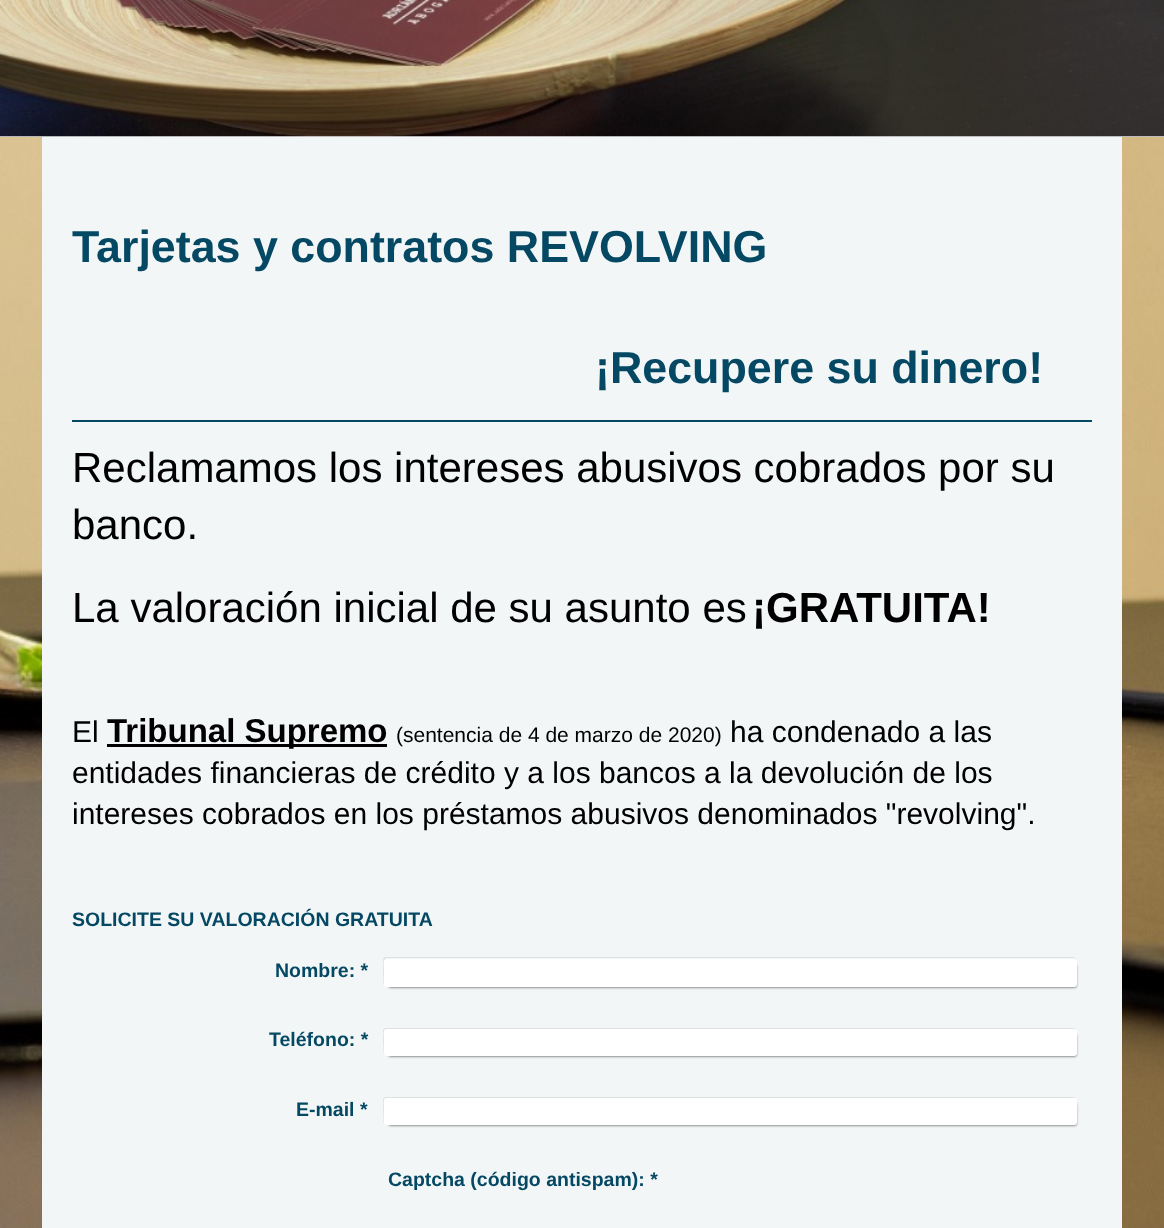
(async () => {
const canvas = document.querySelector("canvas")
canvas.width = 1164
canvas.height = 1228
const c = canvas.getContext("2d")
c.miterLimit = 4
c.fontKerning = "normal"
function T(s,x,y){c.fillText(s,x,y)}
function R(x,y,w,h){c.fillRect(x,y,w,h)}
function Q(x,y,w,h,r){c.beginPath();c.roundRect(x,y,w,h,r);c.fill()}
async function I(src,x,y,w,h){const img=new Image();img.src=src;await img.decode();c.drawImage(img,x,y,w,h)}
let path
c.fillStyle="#fff"
R(0,0,1164,1228)
await I("1.png",0,137,1164,1091)
c.fillStyle="#eee"
R(0,136,1164,1)
await I("2.png",0,0,1164,137)
c.fillStyle="#f2f6f7"
R(42,137,1080,1091)
c.font="bold 44.8px Liberation Sans"
c.fillStyle="#054863"
T("Tarjetas y contratos REVOLVING",72,262)
T("¡Recupere su dinero!",595,383)
R(72,420,1020,2)
c.font="42px Liberation Sans"
c.fillStyle="#000"
T("Reclamamos los intereses abusivos cobrados por su",72,482)
T("banco.",72,539)
T("La valoración inicial de su asunto es",72,622)
c.font="bold 42px Liberation Sans"
T("¡GRATUITA!",752,622)
c.font="30px Liberation Sans"
T("El",72,742)
R(107,744,280,3)
c.font="bold 33px Liberation Sans"
T("Tribunal Supremo",107,742)
c.font="21px Liberation Sans"
T("(sentencia de 4 de marzo de 2020)",396,742)
c.font="30px Liberation Sans"
T("ha condenado a las",730,742)
T("entidades financieras de crédito y a los bancos a la devolución de los",72,783)
T("intereses cobrados en los préstamos abusivos denominados \"revolving\".",72,824)
c.font="bold 19.5px Liberation Sans"
c.fillStyle="#054863"
T("SOLICITE SU VALORACIÓN GRATUITA",72,926)
c.fillStyle="#dfe2e3"
path = new Path2D("M386 957c-2 0-3 1-3 3v23c0 1 1 2 1 3c-1-3 0-14 0-17c0-2-2-10 3-11h687l2 1c0-1-2-2-3-2z")
c.fill(path)
c.fillStyle="#000000cc"
c.filter="blur(1.5px)"
c.beginPath()
c.rect(389,965,687,22)
c.fill()
c.filter="none"
c.fillStyle="#054863"
T("Nombre: *",275,977)
c.fillStyle="#fff"
Q(384,959,693,28,3)
c.fillStyle="#dfe2e3"
path = new Path2D("M386 1028c-2 0-3 1-3 3v21c0 1 1 2 1 3c-1-3 0-13 0-16c0-2-2-10 3-10h687h2c-1 0-2-1-3-1z")
c.fill(path)
c.fillStyle="#000000cc"
c.filter="blur(1.5px)"
c.beginPath()
c.rect(389,1035,687,21)
c.fill()
c.filter="none"
c.fillStyle="#054863"
T("Teléfono: *",269,1046)
c.fillStyle="#fff"
Q(384,1029,693,27,3)
c.fillStyle="#dfe2e3"
path = new Path2D("M386 1097c-2 0-3 1-3 3v21c0 1 1 2 1 3c-1-3 0-13 0-16c0-2-2-10 3-10h687h2c-1 0-2-1-3-1z")
c.fill(path)
c.fillStyle="#000000cc"
c.filter="blur(1.5px)"
c.beginPath()
c.rect(389,1104,687,21)
c.fill()
c.filter="none"
c.fillStyle="#054863"
T("E-mail *",296,1116)
c.fillStyle="#fff"
Q(384,1098,693,27,3)
c.fillStyle="#054863"
T("Captcha (código antispam): *",388,1186)
})()
